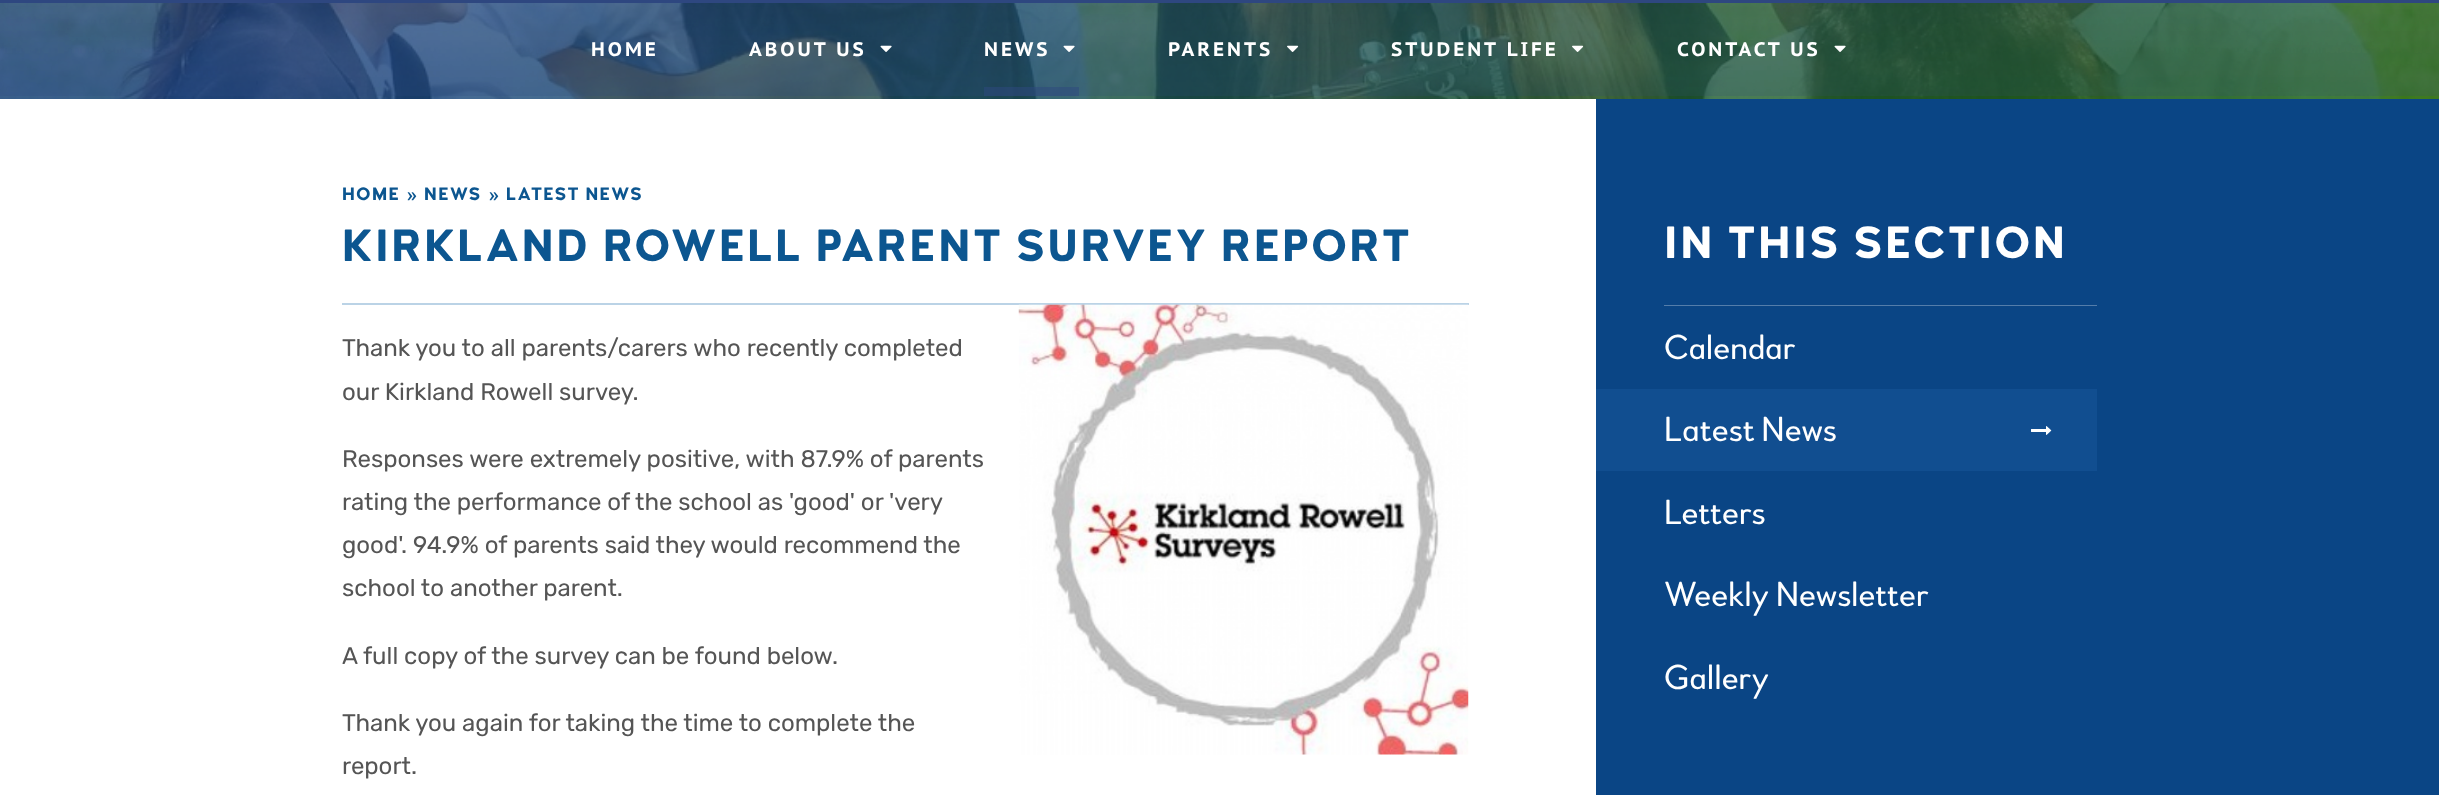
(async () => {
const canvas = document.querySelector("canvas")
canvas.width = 2439
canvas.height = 795
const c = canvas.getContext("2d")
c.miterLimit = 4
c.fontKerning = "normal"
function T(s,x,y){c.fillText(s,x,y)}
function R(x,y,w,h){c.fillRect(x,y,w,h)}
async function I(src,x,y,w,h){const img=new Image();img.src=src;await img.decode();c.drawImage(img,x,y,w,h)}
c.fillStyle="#fff"
R(0,0,2439,795)
await I("1.png",0,3,2439,96)
await I("2.png",0,3,2439,96)
c.fillStyle="#2e4780"
R(0,0,2439,3)
c.letterSpacing="3px"
c.font="bold 19.5px PT Sans Caption"
c.fillStyle="#fff"
T("HOME",591,56)
T("ABOUT US",749,56)
await I("3.png",880,45,12,7)
T("NEWS",984,56)
await I("4.png",1063,45,12,7)
c.fillStyle="#2e478080"
R(984,87,95,9)
c.fillStyle="#fff"
T("PARENTS",1168,56)
await I("5.png",1287,45,12,7)
T("STUDENT LIFE",1391,56)
await I("6.png",1572,45,12,7)
T("CONTACT US",1677,56)
await I("7.png",1834,45,12,7)
c.letterSpacing="1.5px"
c.font="bold 18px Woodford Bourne"
c.fillStyle="#0c5690"
T("HOME",342,200)
c.letterSpacing="0px"
T("»",407,200)
c.letterSpacing="1.5px"
T("NEWS",424,200)
c.letterSpacing="0px"
T("»",489,200)
c.letterSpacing="1.5px"
T("LATEST NEWS",506,200)
c.fillStyle="#bbd3e6"
R(342,303,1127,2)
c.letterSpacing="3px"
c.font="bold 45px Woodford Bourne"
c.fillStyle="#0c5690"
T("KIRKLAND ROWELL PARENT SURVEY REPORT",342,261)
c.letterSpacing="0px"
c.font="300 24px Rubik"
c.fillStyle="#555"
T("Thank you to all parents/carers who recently completed",342,356)
T("our Kirkland Rowell survey.",342,400)
T("Responses were extremely positive, with 87.9% of parents",342,467)
T("rating the performance of the school as 'good' or 'very",342,510)
T("good'. 94.9% of parents said they would recommend the",342,553)
T("school to another parent.",342,596)
T("A full copy of the survey can be found below.",342,664)
T("Thank you again for taking the time to complete the",342,731)
T("report.",342,774)
await I("8.png",1018,304,451,451)
c.fillStyle="#0a4585"
R(1596,99,843,696)
c.fillStyle="#547daa"
R(1664,305,433,1)
c.letterSpacing="3px"
c.font="bold 45px Woodford Bourne"
c.fillStyle="#fff"
T("IN THIS SECTION",1664,258)
c.letterSpacing="0px"
c.font="34.5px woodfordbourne"
T("Calendar",1664,359)
c.fillStyle="#114e90"
R(1596,389,501,82)
c.fillStyle="#fff"
T("Latest News",1664,441)
await I("9.png",2031,426,21,9)
T("Letters",1664,524)
T("Weekly Newsletter",1664,606)
T("Gallery",1664,689)
})()
